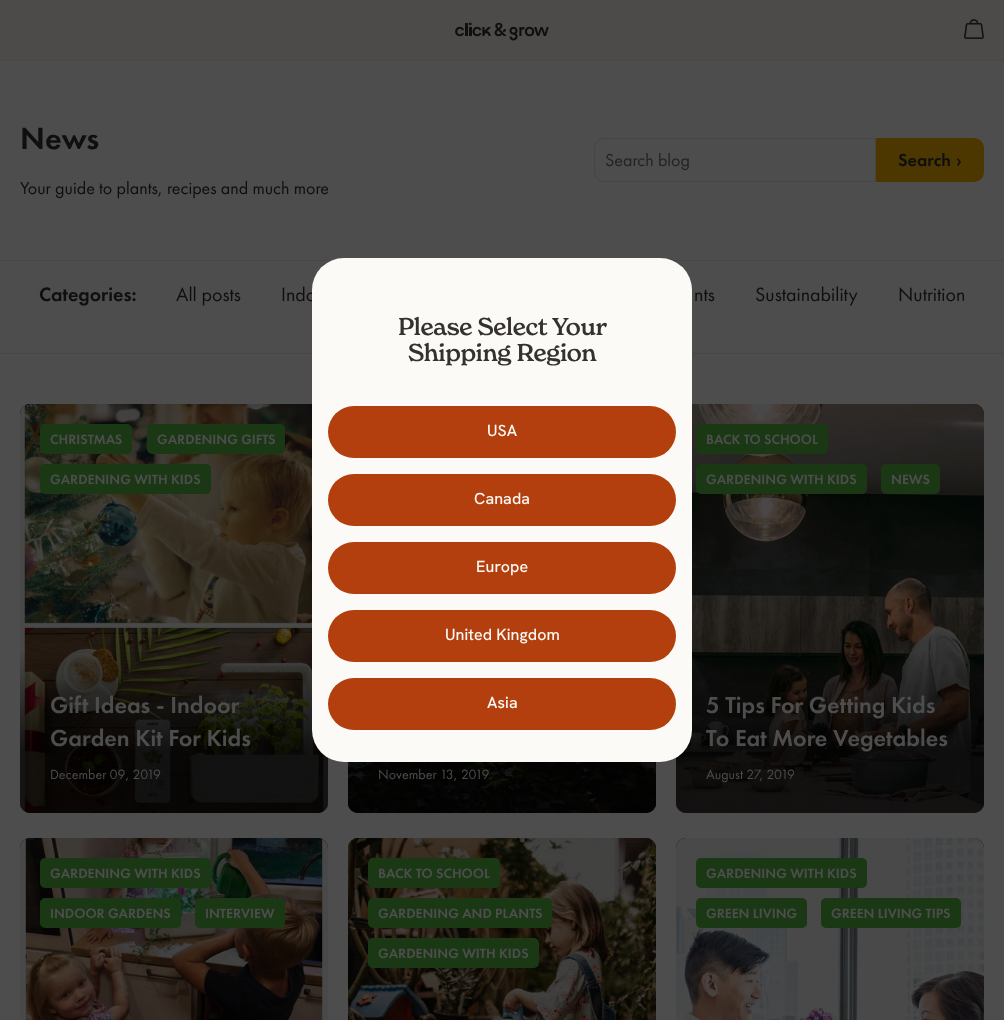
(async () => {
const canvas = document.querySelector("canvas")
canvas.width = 1004
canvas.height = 1020
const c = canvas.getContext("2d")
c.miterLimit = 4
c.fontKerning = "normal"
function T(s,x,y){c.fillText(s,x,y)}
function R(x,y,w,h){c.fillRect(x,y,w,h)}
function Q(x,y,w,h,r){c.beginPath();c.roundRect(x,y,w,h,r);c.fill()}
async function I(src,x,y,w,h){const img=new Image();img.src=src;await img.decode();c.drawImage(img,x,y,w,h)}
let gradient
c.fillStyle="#4d4d4d"
R(0,0,1004,1020)
c.fillStyle="#4c4b4a"
R(0,0,1004,60)
c.fillStyle="#474747"
R(0,60,1004,1)
await I("1.png",455,22,94,19)
await I("2.png",964,19,20,20)
c.font="500 32px Futura PT"
c.fillStyle="#0f0f0f"
T("News",20,149)
c.font="18px Futura PT"
T("Your guide to plants, recipes and much more",20,194)
c.beginPath()
c.roundRect(594.5,138.5,281,43,[9.5,0,0,9.5])
c.strokeStyle="#454545"
c.stroke()
c.fillStyle="#232323"
T("Search blog",605,166)
c.fillStyle="#4d3700"
c.beginPath()
c.roundRect(876,138,108,44,[0,10,10,0])
c.fill()
c.font="500 18px Futura PT"
c.fillStyle="#0f0f0f"
T("Search",898,166)
T("›",956,166)
c.fillStyle="#474747"
R(0,260,1004,1)
R(0,353,1004,1)
c.font="500 20px Futura PT"
c.fillStyle="#0f0f0f"
T("Categories:",39,301)
c.font="20px Futura PT"
T("All posts",176,301)
T("Indo",281,301)
T("nts",694,301)
T("Sustainability",755,301)
T("Nutrition",898,301)
c.fillStyle="#000"
Q(20,404,308,409,10)
await I("3.png",20,404,308,409)
gradient = c.createLinearGradient(174,813,174,404)
gradient.addColorStop(.15,"#000000b8")
gradient.addColorStop(.4,"#00000000")
c.fillStyle = gradient
Q(20,404,308,409,10)
c.fillStyle="#1b3815"
Q(40,424,92,30,5)
c.font="500 14px Futura PT"
c.fillStyle="#4d4d4d"
T("CHRISTMAS",50,444)
c.fillStyle="#1b3815"
Q(147,424,138,30,5)
c.fillStyle="#4d4d4d"
T("GARDENING GIFTS",157,444)
c.fillStyle="#1b3815"
Q(40,464,171,30,5)
c.fillStyle="#4d4d4d"
T("GARDENING WITH KIDS",50,484)
c.font="500 24px Futura PT"
T("Gift Ideas - Indoor",50,713)
T("Garden Kit For Kids",50,746)
c.font="14px Futura PT"
T("December 09, 2019",50,779)
c.fillStyle="#000"
Q(348,404,308,409,10)
await I("4.png",348,762,308,51)
gradient = c.createLinearGradient(502,813,502,404)
gradient.addColorStop(.15,"#000000b8")
gradient.addColorStop(.4,"#00000000")
c.fillStyle = gradient
Q(348,404,308,409,10)
c.fillStyle="#4d4d4d"
T("November 13, 2019",378,779)
c.fillStyle="#000"
Q(676,404,308,409,10)
await I("5.png",676,404,308,409)
gradient = c.createLinearGradient(830,813,830,404)
gradient.addColorStop(.15,"#000000b8")
gradient.addColorStop(.4,"#00000000")
c.fillStyle = gradient
Q(676,404,308,409,10)
c.fillStyle="#1b3815"
Q(696,424,132,30,5)
c.font="500 14px Futura PT"
c.fillStyle="#4d4d4d"
T("BACK TO SCHOOL",706,444)
c.fillStyle="#1b3815"
Q(696,464,171,30,5)
c.fillStyle="#4d4d4d"
T("GARDENING WITH KIDS",706,484)
c.fillStyle="#1b3815"
Q(881,464,59,30,5)
c.fillStyle="#4d4d4d"
T("NEWS",891,484)
c.font="500 24px Futura PT"
T("5 Tips For Getting Kids",706,713)
T("To Eat More Vegetables",706,746)
c.font="14px Futura PT"
T("August 27, 2019",706,779)
c.fillStyle="#000"
Q(20,838,308,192,10)
await I("6.png",20,838,308,182)
c.fillStyle="#1b3815"
Q(40,858,171,30,5)
c.font="500 14px Futura PT"
c.fillStyle="#4d4d4d"
T("GARDENING WITH KIDS",50,878)
c.fillStyle="#1b3815"
Q(40,898,141,30,5)
c.fillStyle="#4d4d4d"
T("INDOOR GARDENS",50,918)
c.fillStyle="#1b3815"
Q(195,898,90,30,5)
c.fillStyle="#4d4d4d"
T("INTERVIEW",205,918)
c.fillStyle="#000"
Q(348,838,308,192,10)
await I("7.png",348,838,308,182)
c.fillStyle="#1b3815"
Q(368,858,132,30,5)
c.fillStyle="#4d4d4d"
T("BACK TO SCHOOL",378,878)
c.fillStyle="#1b3815"
Q(368,898,184,30,5)
c.fillStyle="#4d4d4d"
T("GARDENING AND PLANTS",378,918)
c.fillStyle="#1b3815"
Q(368,938,171,30,5)
c.fillStyle="#4d4d4d"
T("GARDENING WITH KIDS",378,958)
c.fillStyle="#000"
Q(676,838,308,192,10)
await I("8.png",676,838,308,182)
c.fillStyle="#1b3815"
Q(696,858,171,30,5)
c.fillStyle="#4d4d4d"
T("GARDENING WITH KIDS",706,878)
c.fillStyle="#1b3815"
Q(696,898,111,30,5)
c.fillStyle="#4d4d4d"
T("GREEN LIVING",706,918)
c.fillStyle="#1b3815"
Q(821,898,140,30,5)
c.fillStyle="#4d4d4d"
T("GREEN LIVING TIPS",831,918)
c.fillStyle="#fcfaf6"
Q(312,258,380,504,32)
c.letterSpacing="-0.4px"
c.font="500 24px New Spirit"
c.fillStyle="#34312e"
T("Please Select Your",398,335)
T("Shipping Region",408,361)
c.fillStyle="#b23f0d"
Q(328,406,348,52,26)
c.letterSpacing="0.1px"
c.font="500 16px Hanken Grotesk"
c.fillStyle="#fcfaf6"
T("USA",487,436)
c.fillStyle="#b23f0d"
Q(328,474,348,52,26)
c.fillStyle="#fcfaf6"
T("Canada",474,504)
c.fillStyle="#b23f0d"
Q(328,542,348,52,26)
c.fillStyle="#fcfaf6"
T("Europe",476,572)
c.fillStyle="#b23f0d"
Q(328,610,348,52,26)
c.fillStyle="#fcfaf6"
T("United Kingdom",445,640)
c.fillStyle="#b23f0d"
Q(328,678,348,52,26)
c.fillStyle="#fcfaf6"
T("Asia",487,708)
})()
